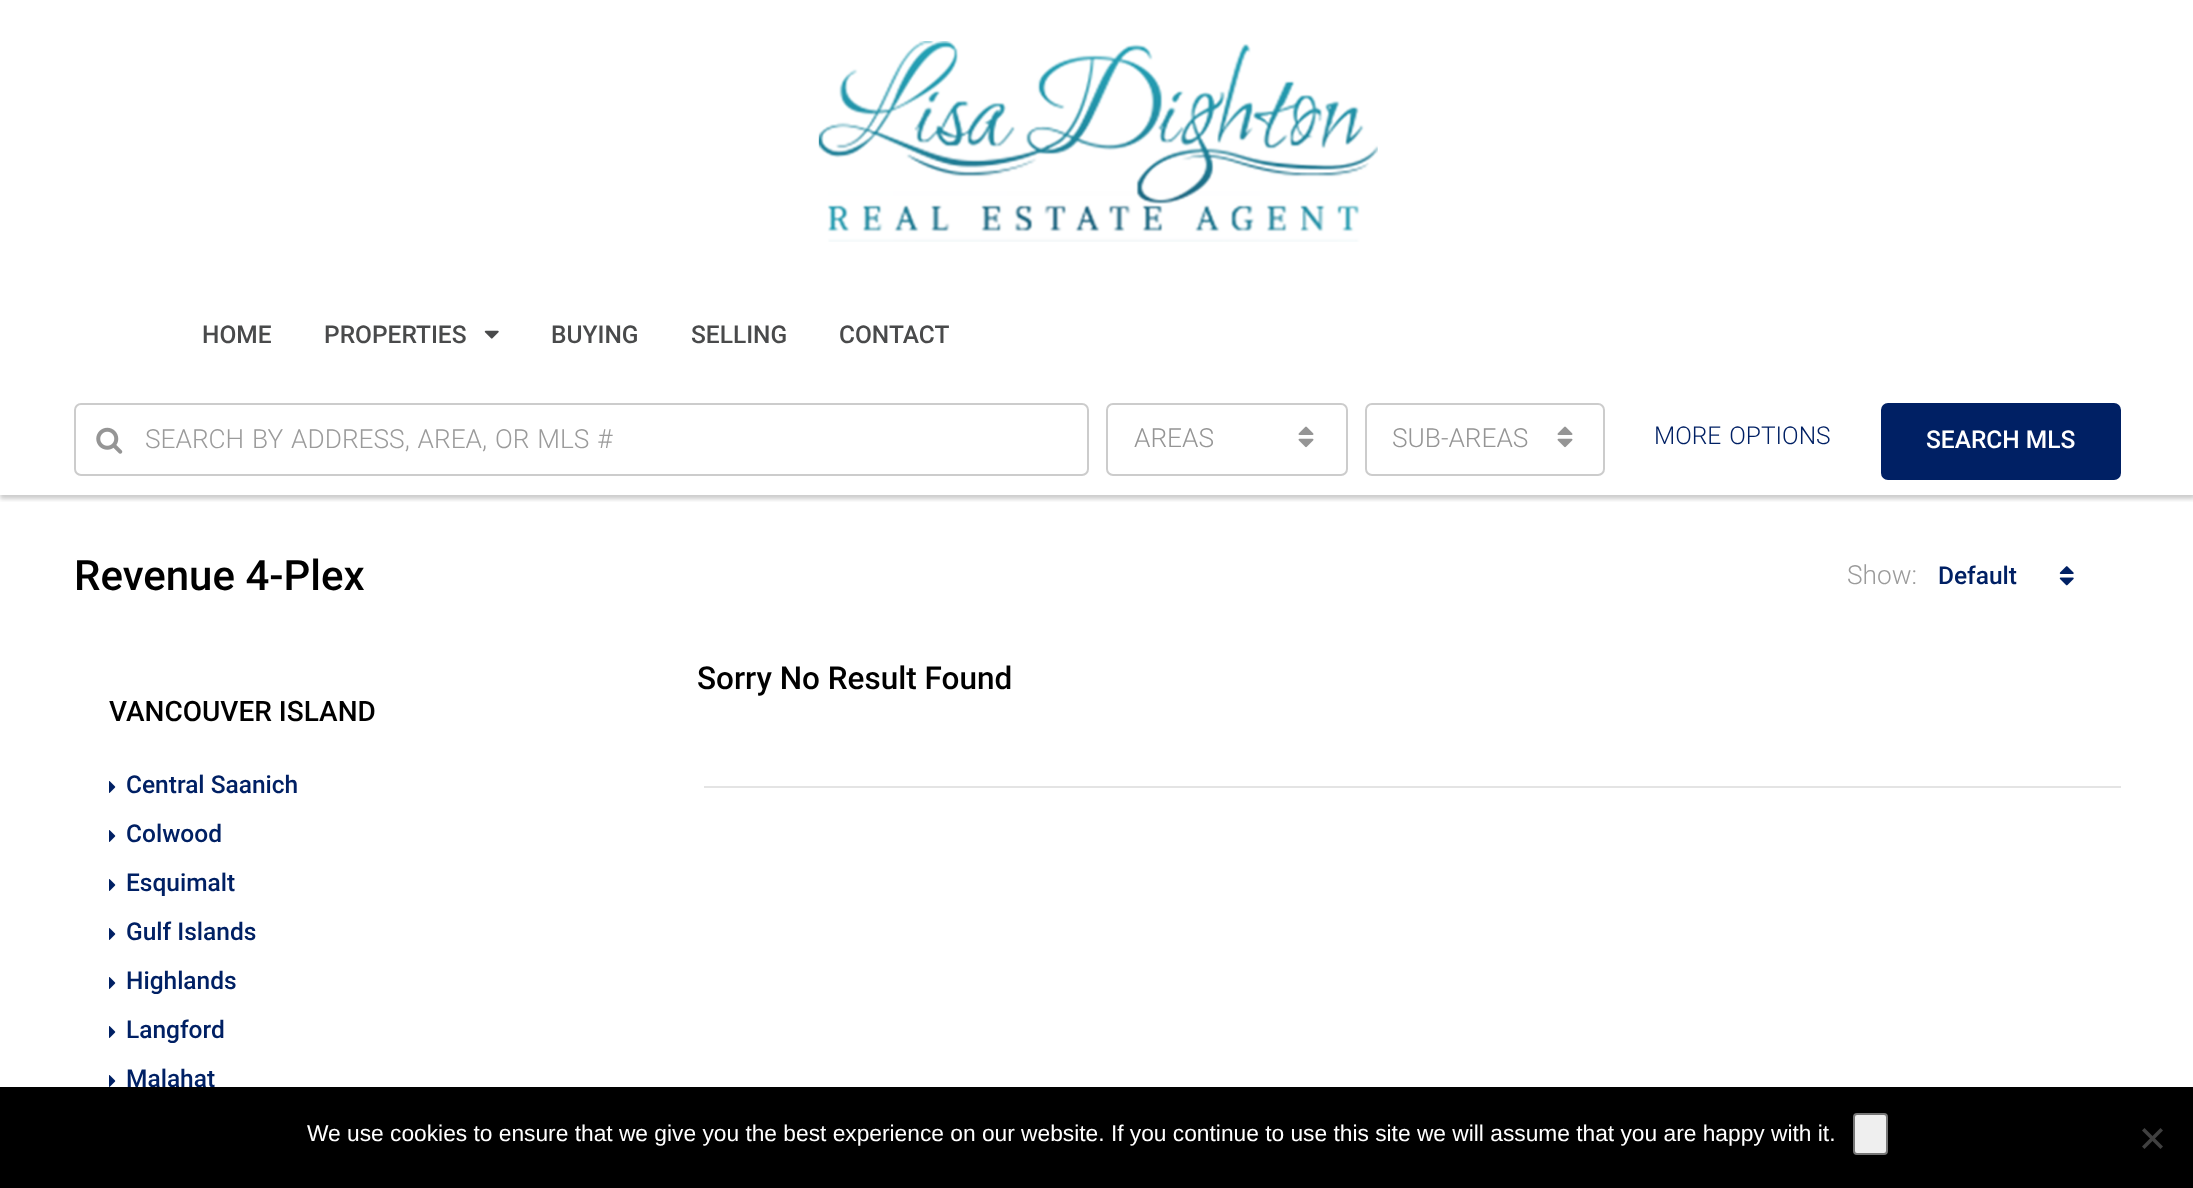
(async () => {
const canvas = document.querySelector("canvas")
canvas.width = 2193
canvas.height = 1188
const c = canvas.getContext("2d")
c.miterLimit = 4
c.fontKerning = "normal"
function T(s,x,y){c.fillText(s,x,y)}
function R(x,y,w,h){c.fillRect(x,y,w,h)}
async function I(src,x,y,w,h){const img=new Image();img.src=src;await img.decode();c.drawImage(img,x,y,w,h)}
let path
c.fillStyle="#fff"
R(0,0,2193,1188)
await I("1.png",818,41,560,201)
c.font="500 24.5px Roboto"
c.fillStyle="#494a4b"
T("HOME",202,343)
T("PROPERTIES",324,343)
await I("2.png",484,330,15,9)
T("BUYING",551,343)
T("SELLING",691,343)
T("CONTACT",839,343)
c.save()
c.beginPath()
c.rect(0,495,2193,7)
c.clip()
c.fillStyle="#00000033"
c.filter="blur(2px)"
c.beginPath()
c.rect(0,390,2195,109)
c.fill()
c.filter="none"
c.restore()
c.beginPath()
c.roundRect(75,404,1013,71,6)
c.strokeStyle="#ccc"
c.lineWidth=2
c.stroke()
await I("3.png",96,427,27,27)
c.wordSpacing="1.5px"
c.font="300 26.25px Roboto"
c.fillStyle="#9b9b9b"
T("SEARCH BY ADDRESS, AREA, OR MLS #",145,448)
c.beginPath()
c.roundRect(1107,404,240,71,6)
c.stroke()
c.wordSpacing="0px"
c.fillStyle="#959595"
T("AREAS",1134,447)
await I("4.png",1298,426,16,22)
c.beginPath()
c.roundRect(1366,404,238,71,6)
c.stroke()
T("SUB-AREAS",1392,447)
await I("4.png",1557,426,16,22)
c.wordSpacing="2px"
c.font="300 24.5px Roboto"
c.fillStyle="#002064"
T("MORE OPTIONS",1654,444)
c.beginPath()
c.roundRect(1882,404,238,75,6)
c.fill()
c.strokeStyle="#002064"
c.stroke()
c.wordSpacing="0px"
c.font="500 24.5px Roboto"
c.fillStyle="#fff"
T("SEARCH MLS",1926,448)
c.font="500 42px Roboto"
c.fillStyle="#000"
T("Revenue 4-Plex",74,590)
c.font="300 26.25px Roboto"
c.fillStyle="#9b9b9b"
T("Show:",1847,584)
c.font="500 24.5px Roboto"
c.fillStyle="#002064"
T("Default",1938,584)
await I("5.png",2059,566,15,20)
c.font="500 31.5px Roboto"
c.fillStyle="#000"
T("Sorry No Result Found",697,689)
c.fillStyle="#e4e4e4"
R(704,786,1417,2)
c.font="500 28px Roboto"
c.fillStyle="#000"
T("VANCOUVER ISLAND",109,721)
await I("6.png",109,781,7,12)
c.font="500 24.5px Roboto"
c.fillStyle="#002064"
T("Central Saanich",126,793)
await I("6.png",109,830,7,12)
T("Colwood",126,842)
await I("6.png",109,879,7,12)
T("Esquimalt",126,891)
await I("6.png",109,928,7,12)
T("Gulf Islands",126,940)
await I("6.png",109,977,7,12)
T("Highlands",126,989)
await I("6.png",109,1026,7,12)
T("Langford",126,1038)
await I("6.png",109,1075,7,12)
T("Malahat",126,1087)
c.fillStyle="#000"
R(0,1087,2193,101)
c.font="22.75px Liberation Sans"
c.fillStyle="#fff"
T("We use cookies to ensure that we give you the best experience on our website. If you continue to use this site we will assume that you are happy with it.",307,1141)
c.fillStyle="#efefef"
c.beginPath()
c.roundRect(1854,1114,33,40,3)
c.fill()
c.strokeStyle="#767676"
c.stroke()
c.fillStyle="#404040"
path = new Path2D("M2160.5 1128l2.5 2.5l-18.5 18.5l-2.5-2.5z")
c.fill(path)
path = new Path2D("M2142 1130.5l2.5-2.5l18.5 18.5l-2.5 2.5z")
c.fill(path)
})()
